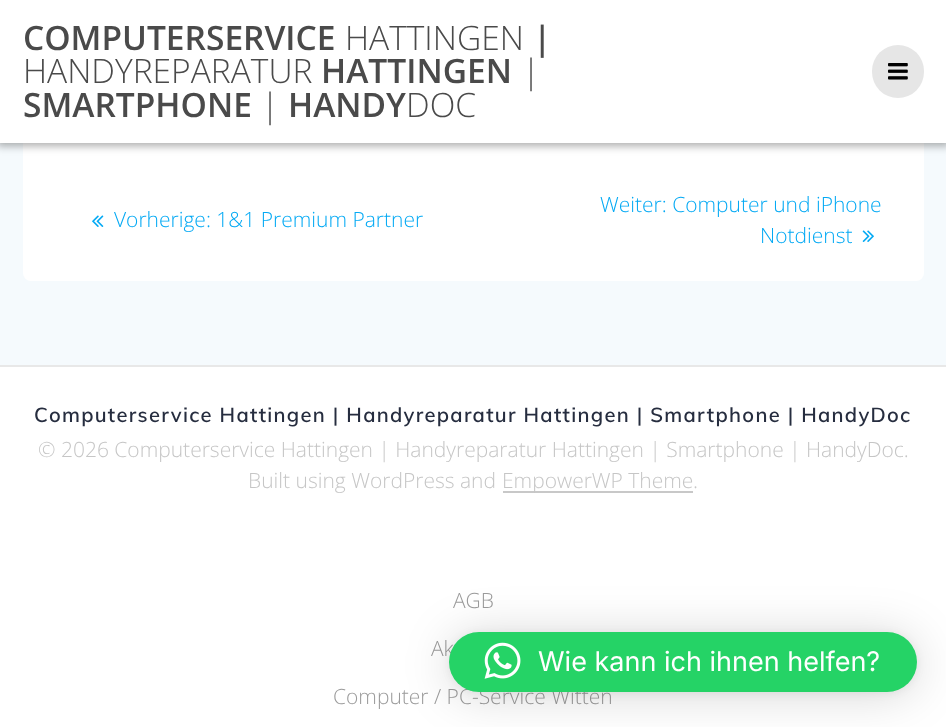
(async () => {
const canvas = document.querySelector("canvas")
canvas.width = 946
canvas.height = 727
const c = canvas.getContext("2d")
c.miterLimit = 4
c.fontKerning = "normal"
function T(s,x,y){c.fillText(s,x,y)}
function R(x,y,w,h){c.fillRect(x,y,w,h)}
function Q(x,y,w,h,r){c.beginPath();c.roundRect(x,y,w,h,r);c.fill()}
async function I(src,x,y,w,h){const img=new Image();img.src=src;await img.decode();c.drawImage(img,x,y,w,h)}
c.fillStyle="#fff"
R(0,0,946,727)
c.fillStyle="#f5fafd"
R(0,143,946,222)
c.fillStyle="#fff"
Q(23,-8,901,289,8)
c.fillStyle="#00000054"
c.filter="blur(4px)"
c.beginPath()
c.rect(-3,-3,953,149)
c.fill()
c.filter="none"
c.fillStyle="#fff"
R(0,0,946,143)
c.font="600 33.5px Open Sans"
c.fillStyle="#4a4a4a"
T("COMPUTERSERVICE",23,50)
c.font="300 33.5px Open Sans"
T("HATTINGEN",345,50)
c.font="600 33.5px Open Sans"
T("|",533,50)
c.font="300 33.5px Open Sans"
T("HANDYREPARATUR",23,83)
c.font="600 33.5px Open Sans"
T("HATTINGEN",321,83)
c.font="300 33.5px Open Sans"
T("|",522,83)
c.font="600 33.5px Open Sans"
T("SMARTPHONE",23,117)
c.font="300 33.5px Open Sans"
T("|",261,117)
c.font="600 33.5px Open Sans"
T("HANDY",288,117)
c.font="300 33.5px Open Sans"
T("DOC",406,117)
c.fillStyle="#e6e6e6"
Q(872,45,52,53,26)
await I("1.png",888,63,20,17)
await I("2.png",92,215,12,12)
c.font="300 21px Open Sans"
c.fillStyle="#03a9f4"
T("Vorherige: 1&1 Premium Partner",114,227)
T("Weiter: Computer und iPhone",600,212)
T("Notdienst",760,243)
await I("3.png",862,230,12,12)
c.fillStyle="#e8e8e8"
R(0,365,946,2)
c.letterSpacing="1.3px"
c.font="600 20.2px Muli"
c.fillStyle="#262d3f"
T("Computerservice Hattingen | Handyreparatur Hattingen | Smartphone | HandyDoc",34,422)
c.letterSpacing="0px"
c.font="300 21px Open Sans"
c.fillStyle="#c6c6c6"
T("© 2026 Computerservice Hattingen | Handyreparatur Hattingen | Smartphone | HandyDoc.",38,457)
T("Built using WordPress and",248,488)
c.fillStyle="#c8c8c8"
R(503,491,190,2)
c.fillStyle="#c6c6c6"
T("EmpowerWP Theme",502,488)
T(".",693,488)
c.fillStyle="#9b9b9b"
T("AGB",453,608)
T("Ak",431,656)
T("Computer / PC-Service Witten",333,704)
c.fillStyle="#00000029"
c.filter="blur(24px)"
c.beginPath()
c.roundRect(449,635,468,60,30)
c.fill()
c.filter="none"
c.fillStyle="#0000000f"
c.filter="blur(4.5px)"
c.beginPath()
c.roundRect(449,633,468,60,30)
c.fill()
c.filter="none"
c.fillStyle="#25d366"
Q(449,632,468,60,30)
await I("4.png",484,642,37,37)
c.font="27px Inter"
c.fillStyle="#fff"
T("Wie kann ich ihnen helfen?",538,671)
})()
